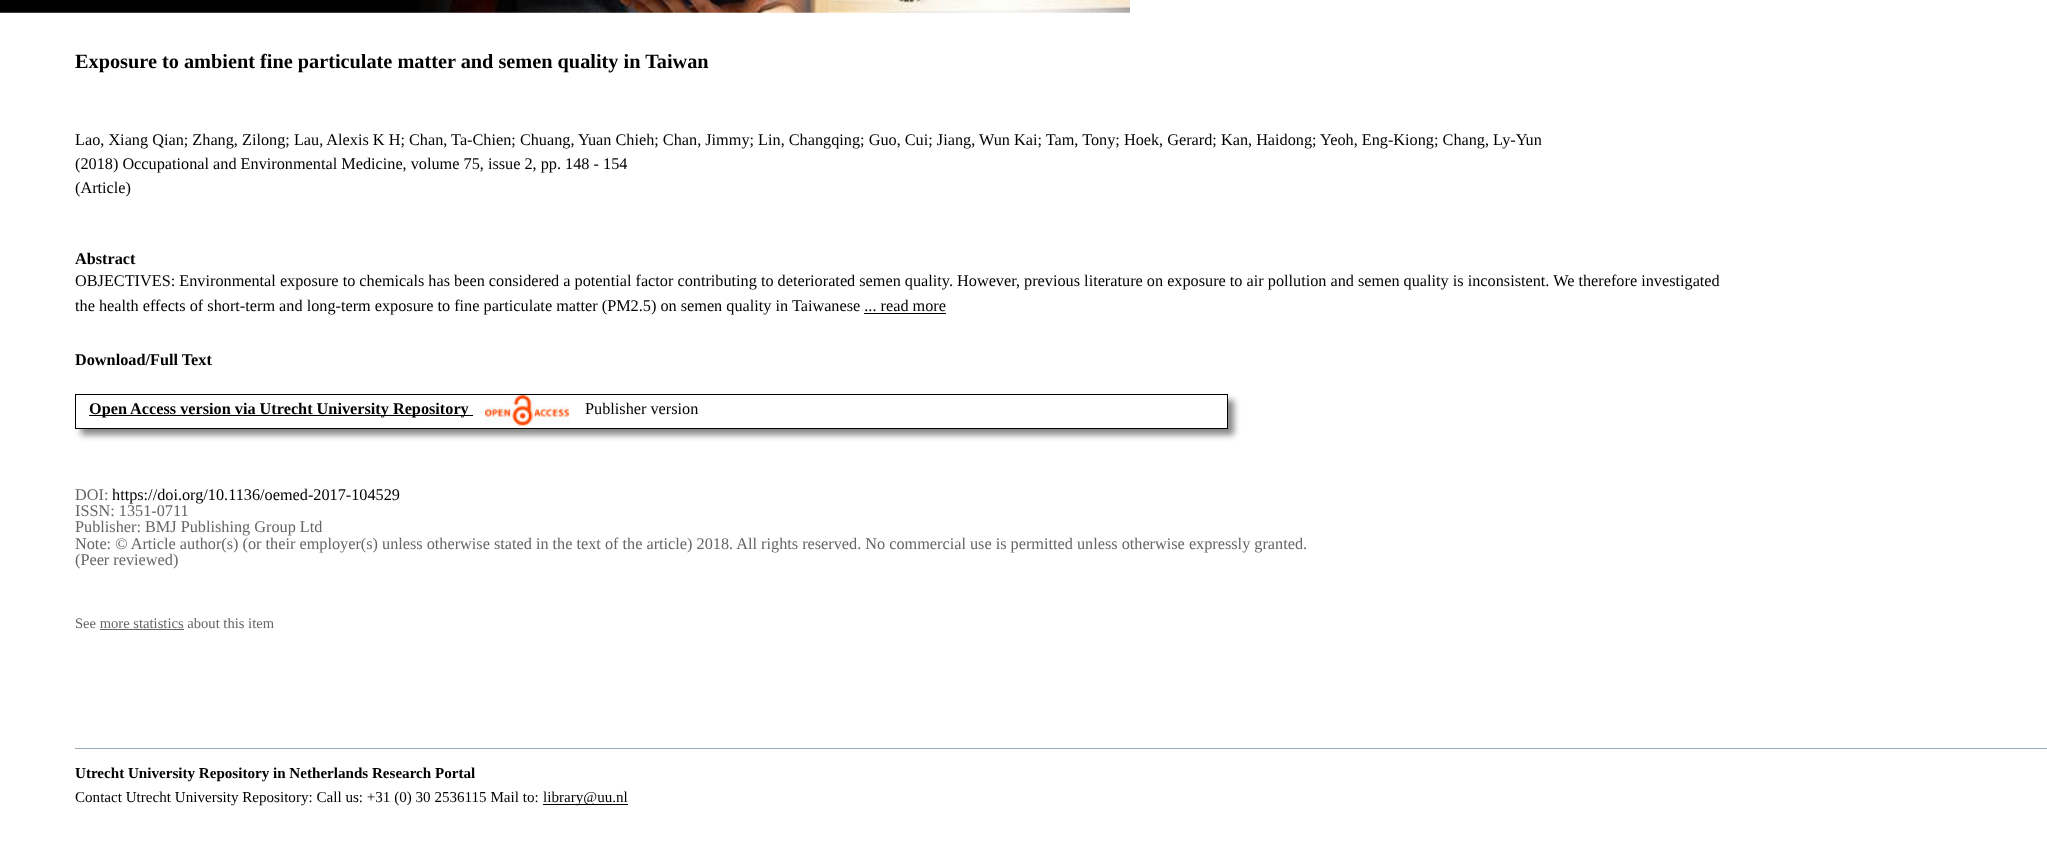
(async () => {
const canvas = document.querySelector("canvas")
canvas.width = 2047
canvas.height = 867
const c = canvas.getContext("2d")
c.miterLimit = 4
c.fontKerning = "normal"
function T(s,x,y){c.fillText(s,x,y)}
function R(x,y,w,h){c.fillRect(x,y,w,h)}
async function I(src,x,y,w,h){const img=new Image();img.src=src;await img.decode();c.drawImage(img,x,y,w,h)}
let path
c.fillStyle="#fff"
R(0,0,2047,867)
await I("1.png",0,0,1130,13)
c.font="bold 20.3px Liberation Serif"
c.fillStyle="#000"
T("Exposure to ambient fine particulate matter and semen quality in Taiwan",75,68)
c.font="16.25px Liberation Serif"
T("Lao, Xiang Qian; Zhang, Zilong; Lau, Alexis K H; Chan, Ta-Chien; Chuang, Yuan Chieh; Chan, Jimmy; Lin, Changqing; Guo, Cui; Jiang, Wun Kai; Tam, Tony; Hoek, Gerard; Kan, Haidong; Yeoh, Eng-Kiong; Chang, Ly-Yun",75,145)
T("(2018) Occupational and Environmental Medicine, volume 75, issue 2, pp. 148 - 154",75,169)
T("(Article)",75,193)
c.font="bold 16.25px Liberation Serif"
T("Abstract",75,264)
c.font="16.25px Liberation Serif"
T("OBJECTIVES: Environmental exposure to chemicals has been considered a potential factor contributing to deteriorated semen quality. However, previous literature on exposure to air pollution and semen quality is inconsistent. We therefore investigated",75,286)
T("the health effects of short-term and long-term exposure to fine particulate matter (PM2.5) on semen quality in Taiwanese ... read more",75,311)
R(864,313,82,1)
c.font="bold 16.25px Liberation Serif"
T("Download/Full Text",75,365)
c.save()
path = new Path2D("M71 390h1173v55h-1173zm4 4h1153v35h-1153z")
c.clip(path,"evenodd")
c.fillStyle="#888"
c.filter="blur(3px)"
c.beginPath()
c.rect(81,400,1153,35)
c.fill()
c.filter="none"
c.restore()
c.strokeStyle="#000"
c.strokeRect(75.5,394.5,1152,34)
R(89,415,384,1)
T("Open Access version via Utrecht University Repository",89,414)
await I("2.png",485,395,84,31)
c.font="16.25px Liberation Serif"
T("Publisher version",585,414)
c.fillStyle="#666"
T("DOI:",75,500)
c.fillStyle="#000"
T("https://doi.org/10.1136/oemed-2017-104529",112,500)
c.fillStyle="#666"
T("ISSN: 1351-0711",75,516)
T("Publisher: BMJ Publishing Group Ltd",75,532)
T("Note: © Article author(s) (or their employer(s) unless otherwise stated in the text of the article) 2018. All rights reserved. No commercial use is permitted unless otherwise expressly granted.",75,549)
T("(Peer reviewed)",75,565)
c.font="14.6px Liberation Serif"
T("See more statistics about this item",75,628)
R(100,629,84,1)
c.fillStyle="#9cacba"
R(75,748,1972,1)
c.font="bold 15.1px Liberation Serif"
c.fillStyle="#000"
T("Utrecht University Repository in Netherlands Research Portal",75,778)
c.font="15.1px Liberation Serif"
T("Contact Utrecht University Repository: Call us: +31 (0) 30 2536115 Mail to:",75,802)
R(543,804,85,1)
T("library@uu.nl",543,802)
})()
